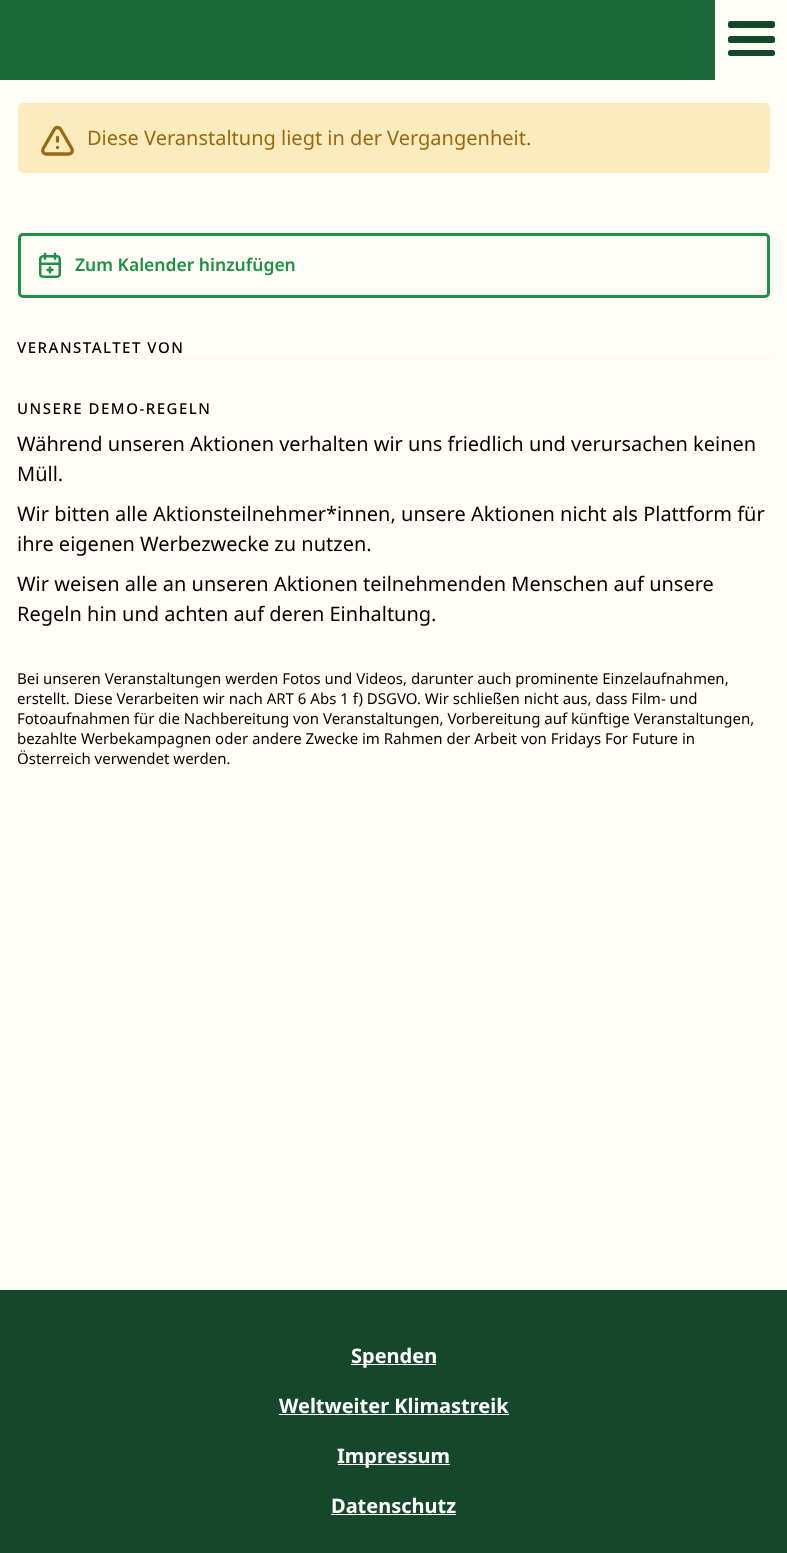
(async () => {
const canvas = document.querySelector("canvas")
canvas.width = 787
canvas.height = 1553
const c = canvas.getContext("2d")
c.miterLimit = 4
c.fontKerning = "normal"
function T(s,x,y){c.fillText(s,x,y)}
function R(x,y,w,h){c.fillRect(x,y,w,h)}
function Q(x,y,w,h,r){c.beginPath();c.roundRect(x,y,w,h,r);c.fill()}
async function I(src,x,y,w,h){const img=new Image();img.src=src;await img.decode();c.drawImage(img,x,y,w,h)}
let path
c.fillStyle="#fffdf6"
R(0,0,787,1553)
c.fillStyle="#1b6839"
R(0,0,715,80)
c.fillStyle="#15482a"
Q(728,21,47,7,2.5)
Q(728,36,47,7,2.5)
Q(728,50,47,6,2.5)
c.fillStyle="#fcebbd"
Q(18,103,752,70,5)
path = new Path2D("M57.5 137.5v3.5m0 6.5h0m-11.5 6.5h23c2.5 0 4-2.5 3-5l-11.5-20c-1.5-2-4.5-2-6 0l-11.5 20c-1 2.5 .5 5 3 5z")
c.strokeStyle="#99690f"
c.lineWidth=3.3
c.lineCap="round"
c.lineJoin="round"
c.stroke(path)
c.font="20px Noto Sans"
c.fillStyle="#99690f"
T("Diese Veranstaltung liegt in der Vergangenheit.",87,145)
c.beginPath()
c.roundRect(19.5,234.5,749,62,3.5)
c.strokeStyle="#1d9246"
c.lineWidth=3
c.lineJoin="miter"
c.stroke()
await I("1.png",38,252,24,26)
c.font="600 17.5px Noto Sans"
c.fillStyle="#1d9246"
T("Zum Kalender hinzufügen",75,271)
c.letterSpacing="1.5px"
c.font="500 15px Noto Sans"
c.fillStyle="#000"
T("VERANSTALTET VON",17,353)
c.fillStyle="#faf6e9"
R(18,358,752,1)
c.fillStyle="#000"
T("UNSERE DEMO-REGELN",17,414)
c.letterSpacing="0px"
c.font="20px Noto Sans"
T("Während unseren Aktionen verhalten wir uns friedlich und verursachen keinen",17,451)
T("Müll.",17,481)
T("Wir bitten alle Aktionsteilnehmer*innen, unsere Aktionen nicht als Plattform für",17,521)
T("ihre eigenen Werbezwecke zu nutzen.",17,551)
T("Wir weisen alle an unseren Aktionen teilnehmenden Menschen auf unsere",17,591)
T("Regeln hin und achten auf deren Einhaltung.",17,621)
c.font="15px Noto Sans"
T("Bei unseren Veranstaltungen werden Fotos und Videos, darunter auch prominente Einzelaufnahmen,",17,684)
T("erstellt. Diese Verarbeiten wir nach ART 6 Abs 1 f) DSGVO. Wir schließen nicht aus, dass Film- und",17,704)
T("Fotoaufnahmen für die Nachbereitung von Veranstaltungen, Vorbereitung auf künftige Veranstaltungen,",17,724)
T("bezahlte Werbekampagnen oder andere Zwecke im Rahmen der Arbeit von Fridays For Future in",17,744)
T("Österreich verwendet werden.",17,764)
c.fillStyle="#15482a"
R(0,1290,787,263)
c.fillStyle="#fff"
R(351,1364,85,1)
c.font="bold 20px Noto Sans"
T("Spenden",351,1363)
T("Weltweiter Klimastreik",279,1413)
R(279,1414,230,1)
R(338,1464,112,1)
T("Impressum",337,1463)
T("Datenschutz",331,1513)
R(331,1514,125,1)
})()
